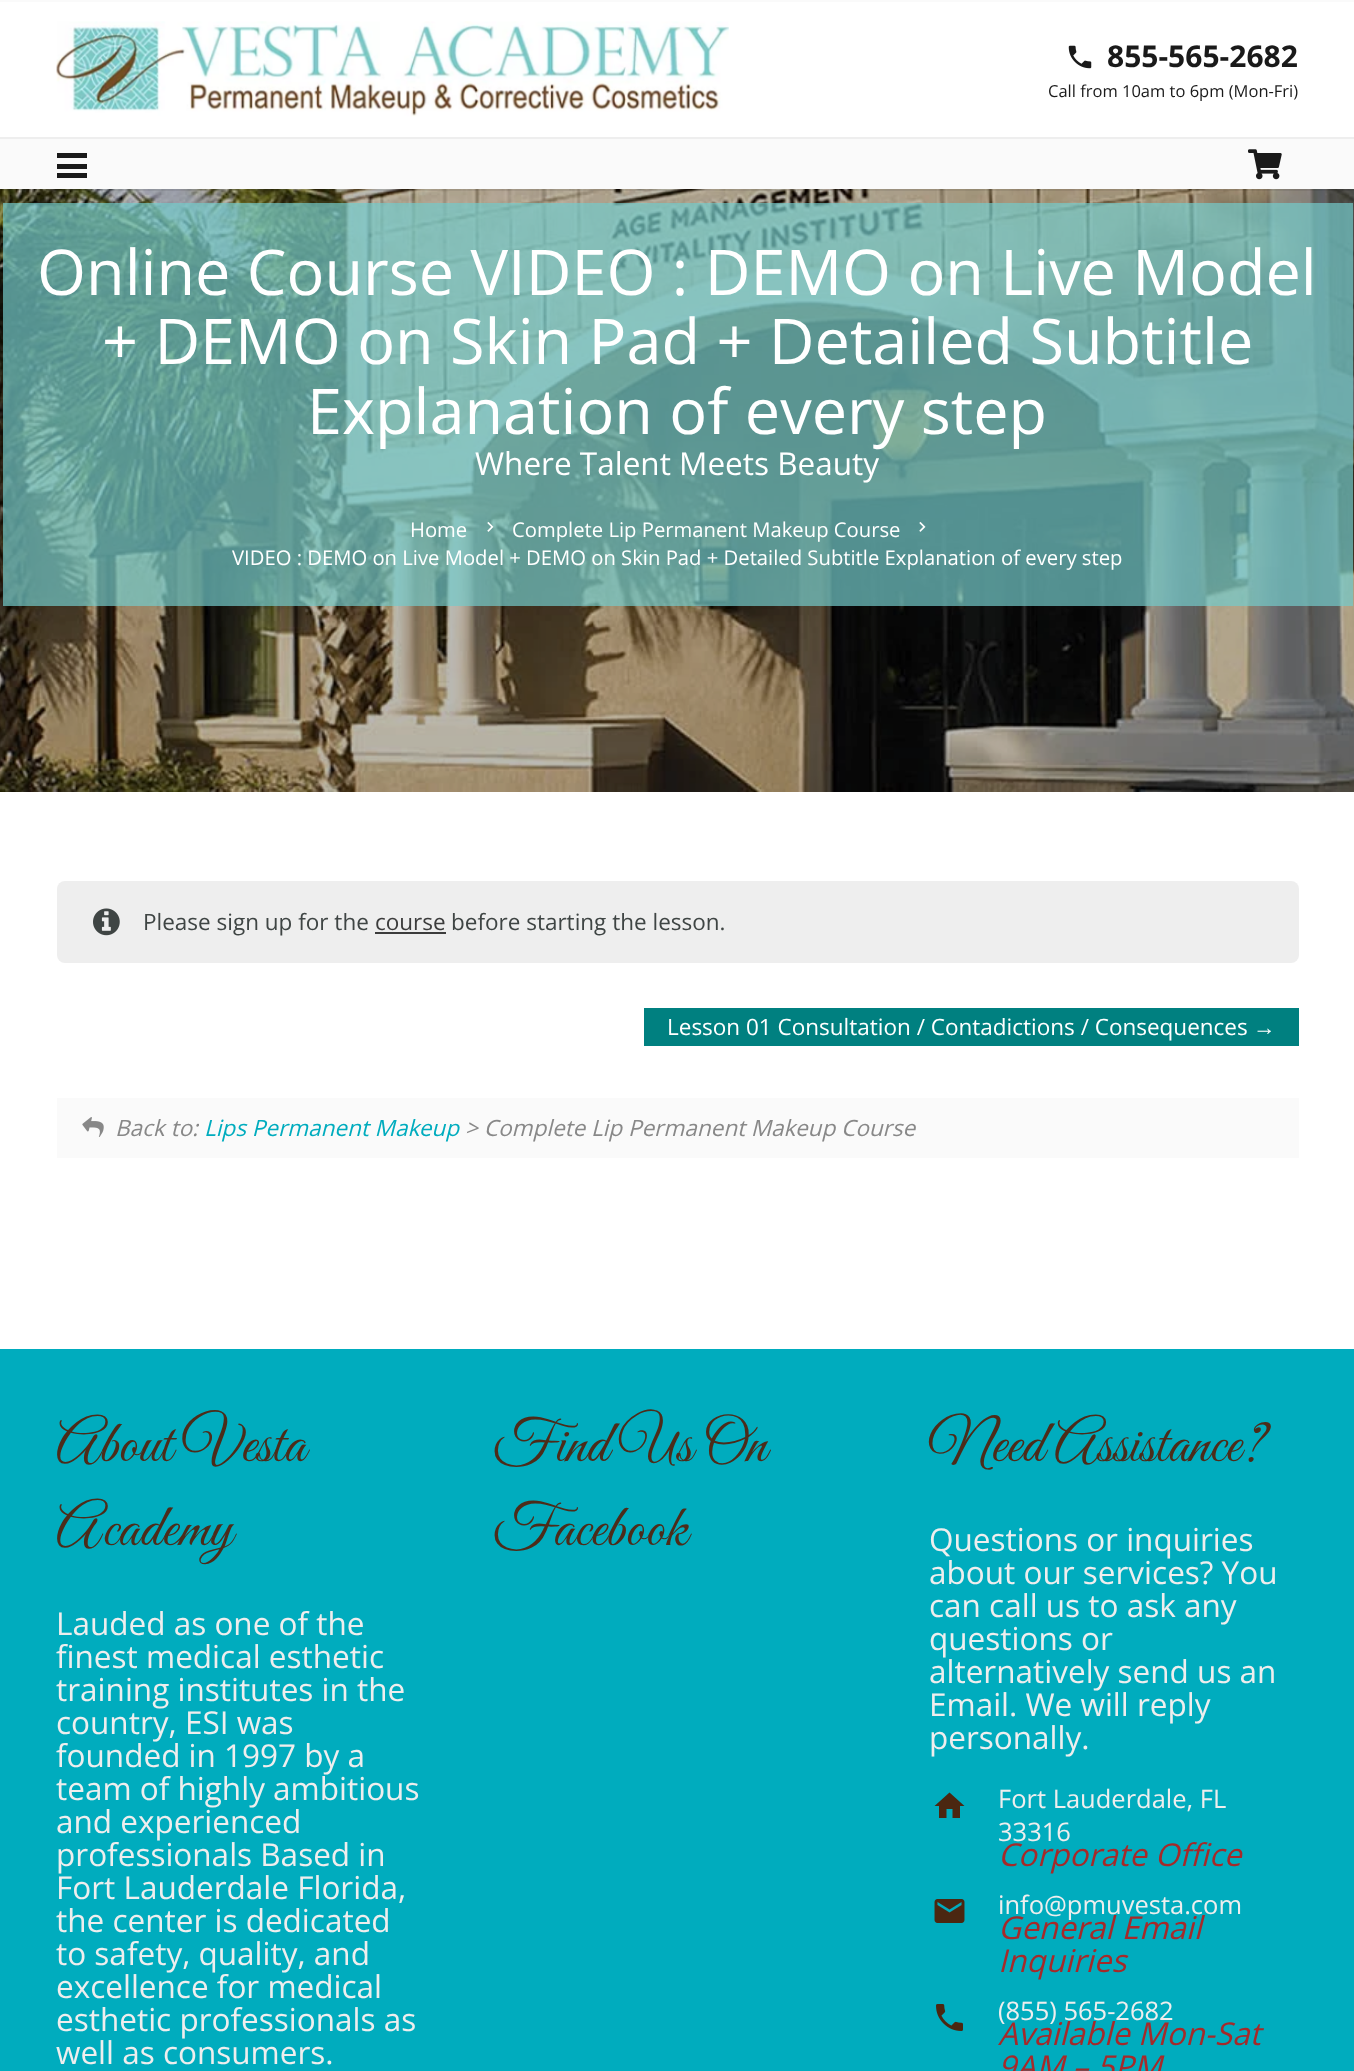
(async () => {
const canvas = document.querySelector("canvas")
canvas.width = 1354
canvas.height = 2071
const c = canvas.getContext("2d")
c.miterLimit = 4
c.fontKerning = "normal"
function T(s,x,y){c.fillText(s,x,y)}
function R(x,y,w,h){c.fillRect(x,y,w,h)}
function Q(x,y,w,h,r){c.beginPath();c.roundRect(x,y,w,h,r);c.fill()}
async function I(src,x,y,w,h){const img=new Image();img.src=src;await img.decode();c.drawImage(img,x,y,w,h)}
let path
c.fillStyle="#fff"
R(0,0,1354,2071)
c.fillStyle="#fafafa"
R(0,0,1354,2)
await I("1.png",56,21,673,96)
await I("2.png",1068,45,24,24)
c.font="bold 30px Open Sans"
c.fillStyle="#1a1a1a"
T("855-565-2682",1107,67)
c.font="16.5px Open Sans"
T("Call from 10am to 6pm (Mon-Fri)",1048,97)
await I("4.png",0,189,1354,603)
c.fillStyle="#00000014"
path = new Path2D("M0 189v2h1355v-53h-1v51z")
c.fill(path)
c.fillStyle="#fafafa"
R(0,139,1354,50)
c.fillStyle="#eee"
R(0,137,1354,2)
c.fillStyle="#1a1a1a"
R(57,164,30,5)
R(57,153,30,5)
R(57,173,30,5)
await I("3.png",1248,149,34,31)
c.fillStyle="#73cacab3"
R(3,203,1350,403)
c.font="63px Open Sans"
c.fillStyle="#fff"
T("Online Course VIDEO : DEMO on Live Model",37,295)
T("+ DEMO on Skin Pad + Detailed Subtitle",102,364)
T("Explanation of every step",307,434)
c.font="31.5px Open Sans"
T("Where Talent Meets Beauty",475,475)
c.font="20.25px Open Sans"
T("Home",410,537)
await I("5.png",487,521,7,11)
T("Complete Lip Permanent Makeup Course",512,537)
await I("6.png",919,521,7,11)
T("VIDEO : DEMO on Live Model + DEMO on Skin Pad + Detailed Subtitle Explanation of every step",232,565)
c.fillStyle="#eee"
Q(57,881,1242,82,8)
await I("7.png",93,908,27,28)
c.font="22.5px Open Sans"
c.fillStyle="#3f4544"
T("Please sign up for the",143,930)
c.fillStyle="#3c3c3c"
T("course",375,930)
R(375,932,71,2)
c.fillStyle="#3f4544"
T("before starting the lesson.",451,930)
c.fillStyle="#008080"
R(644,1008,655,38)
c.fillStyle="#fff"
T("Lesson 01 Consultation / Contadictions / Consequences",667,1035)
c.font="22.5px Liberation Serif"
T("→",1253,1035)
c.fillStyle="#fafafa"
R(57,1098,1242,60)
await I("8.png",82,1117,22,20)
c.font="italic 22.5px Open Sans"
c.fillStyle="#888"
T("Back to:",115,1136)
c.fillStyle="#00acbe"
T("Lips Permanent Makeup",204,1136)
c.fillStyle="#888"
T("> Complete Lip Permanent Makeup Course",465,1136)
c.fillStyle="#00acbe"
R(0,1349,1354,722)
c.font="60px Great Vibes"
c.fillStyle="#4c2c1a"
T("About Vesta",56,1461)
T("Academy",56,1545)
c.font="31.5px Open Sans"
c.fillStyle="#eee"
T("Lauded as one of the",56,1635)
T("finest medical esthetic",56,1668)
T("training institutes in the",56,1701)
T("country, ESI was",56,1734)
T("founded in 1997 by a",56,1767)
T("team of highly ambitious",56,1800)
T("and experienced",56,1833)
T("professionals Based in",56,1866)
T("Fort Lauderdale Florida,",56,1899)
T("the center is dedicated",56,1932)
T("to safety, quality, and",56,1965)
T("excellence for medical",56,1998)
T("esthetic professionals as",56,2031)
T("well as consumers.",56,2064)
c.font="60px Great Vibes"
c.fillStyle="#4c2c1a"
T("Find Us On",493,1461)
T("Facebook",493,1545)
T("Need Assistance?",929,1461)
c.font="31.5px Open Sans"
c.fillStyle="#eee"
T("Questions or inquiries",929,1551)
T("about our services? You",929,1584)
T("can call us to ask any",929,1617)
T("questions or",929,1650)
T("alternatively send us an",929,1683)
T("Email. We will reply",929,1716)
T("personally.",929,1749)
c.fillStyle="#4b2711"
path = new Path2D("M946.5 1818h-7.5v-12h-4.5l15-13.5l15 13.5h-4.5v12h-7.5v-9h-6z")
c.fill(path)
c.font="25.5px Open Sans"
c.fillStyle="#eee"
T("Fort Lauderdale, FL",998,1808)
T("33316",998,1841)
c.font="italic 31.5px Open Sans"
c.fillStyle="#a52a2a"
T("Corporate Office",998,1866)
await I("9.png",934,1899,31,24)
c.font="25.5px Open Sans"
c.fillStyle="#eee"
T("info@pmuvesta.com",998,1914)
c.font="italic 31.5px Open Sans"
c.fillStyle="#a52a2a"
T("General Email",998,1939)
T("Inquiries",998,1972)
await I("10.png",936,2004,27,27)
c.font="25.5px Open Sans"
c.fillStyle="#eee"
T("(855) 565-2682",998,2020)
c.font="italic 31.5px Open Sans"
c.fillStyle="#a52a2a"
T("Available Mon-Sat",998,2045)
T("9AM – 5PM",998,2078)
})()
